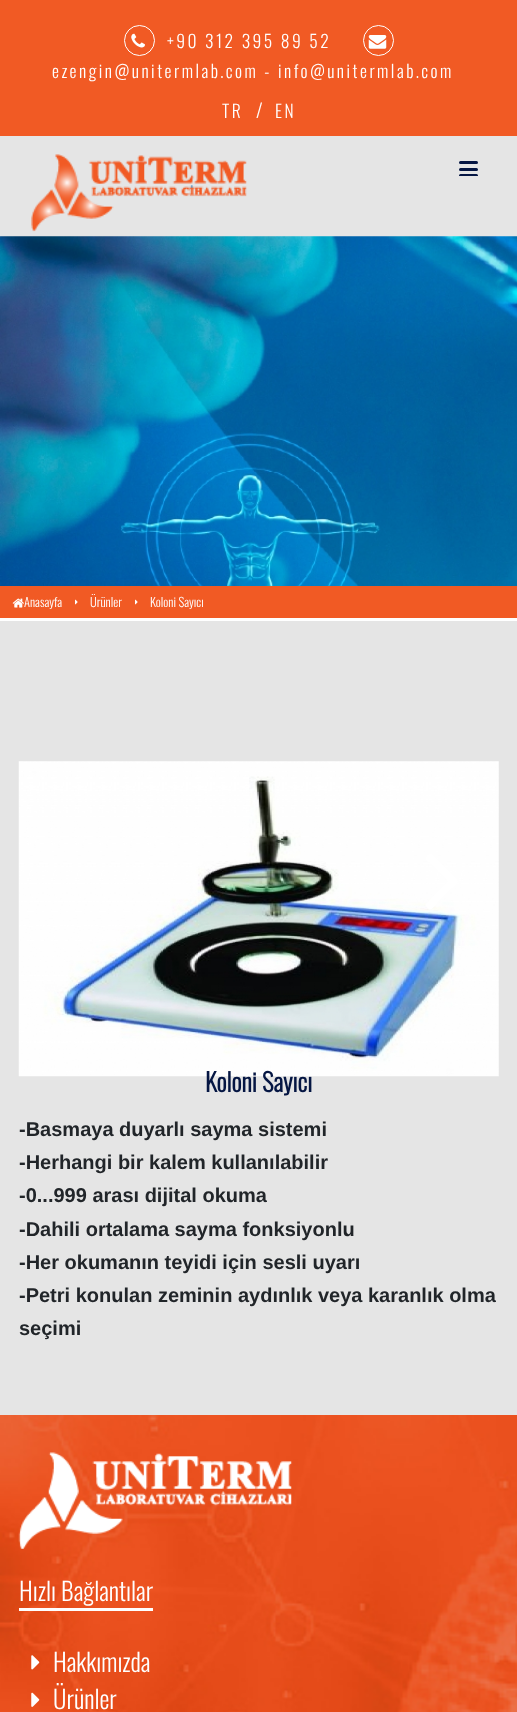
(async () => {
const canvas = document.querySelector("canvas")
canvas.width = 517
canvas.height = 1712
const c = canvas.getContext("2d")
c.miterLimit = 4
c.fontKerning = "normal"
function T(s,x,y){c.fillText(s,x,y)}
function R(x,y,w,h){c.fillRect(x,y,w,h)}
function Q(x,y,w,h,r){c.beginPath();c.roundRect(x,y,w,h,r);c.fill()}
async function I(src,x,y,w,h){const img=new Image();img.src=src;await img.decode();c.drawImage(img,x,y,w,h)}
let path
c.fillStyle="#e5e5e5"
R(0,0,517,1712)
c.fillStyle="#f15a24"
R(0,0,517,136)
c.beginPath()
c.arc(139.5,40.5,15,0,7)
c.strokeStyle="#fff"
c.stroke()
await I("1.png",131,33,14,15)
c.letterSpacing="2.5px"
c.font="300 17.5px Oswald"
c.fillStyle="#fff"
T("+90 312 395 89 52",167,48)
c.beginPath()
c.arc(378.5,40.5,15,0,7)
c.stroke()
await I("2.png",368,35,19,14)
T("ezengin@unitermlab.com - info@unitermlab.com",52,78)
T("TR",222,118)
c.letterSpacing="0px"
c.font="300 19px Oswald"
T("/",256,118)
c.letterSpacing="2.5px"
c.font="300 17.5px Oswald"
T("EN",275,118)
await I("3.png",31,154,216,78)
c.fillStyle="#051643"
Q(459,161,19,3,1.5)
Q(459,168,19,3,1.5)
c.save()
c.beginPath()
c.rect(278,149,221,27)
c.clip()
Q(459,174,19,3,1.5)
c.restore()
await I("4.png",0,236,517,350)
c.fillStyle="#f15a24"
R(0,586,517,32)
c.fillStyle="#fff"
R(0,618,517,3)
await I("5.png",12,598,12,10)
c.letterSpacing="0px"
c.font="300 12.5px Oswald"
T("Anasayfa",24,607)
await I("6.png",75,599,3,6)
T("Ürünler",90,607)
await I("6.png",135,599,3,6)
T("Koloni Sayıcı",150,607)
await I("7.png",18,761,481,316)
path = new Path2D("M457 880c3 3-4 7-4 7l-17 18c-1 0-5 6-7 4c-1-1-5-4-3-5l22-22l-18-19c-4-4-6-4-3-7c4-4 4-2 9 3z")
c.fill(path)
c.font="bold 25px Oswald"
c.fillStyle="#051643"
T("Koloni Sayıcı",205,1092)
c.font="bold 20px Liberation Sans"
c.fillStyle="#212529"
T("-Basmaya duyarlı sayma sistemi",19,1136)
T("-Herhangi bir kalem kullanılabilir",19,1169)
T("-0...999 arası dijital okuma",19,1202)
T("-Dahili ortalama sayma fonksiyonlu",19,1236)
T("-Her okumanın teyidi için sesli uyarı",19,1269)
T("-Petri konulan zeminin aydınlık veya karanlık olma",19,1302)
T("seçimi",19,1335)
await I("8.png",0,1415,517,297)
await I("9.png",18,1452,274,97)
c.font="300 25px Oswald"
c.fillStyle="#fff"
T("Hızlı Bağlantılar",19,1601)
R(19,1608,134,3)
await I("10.png",31,1655,9,15)
T("Hakkımızda",53,1672)
await I("11.png",31,1692,9,15)
T("Ürünler",53,1709)
})()
